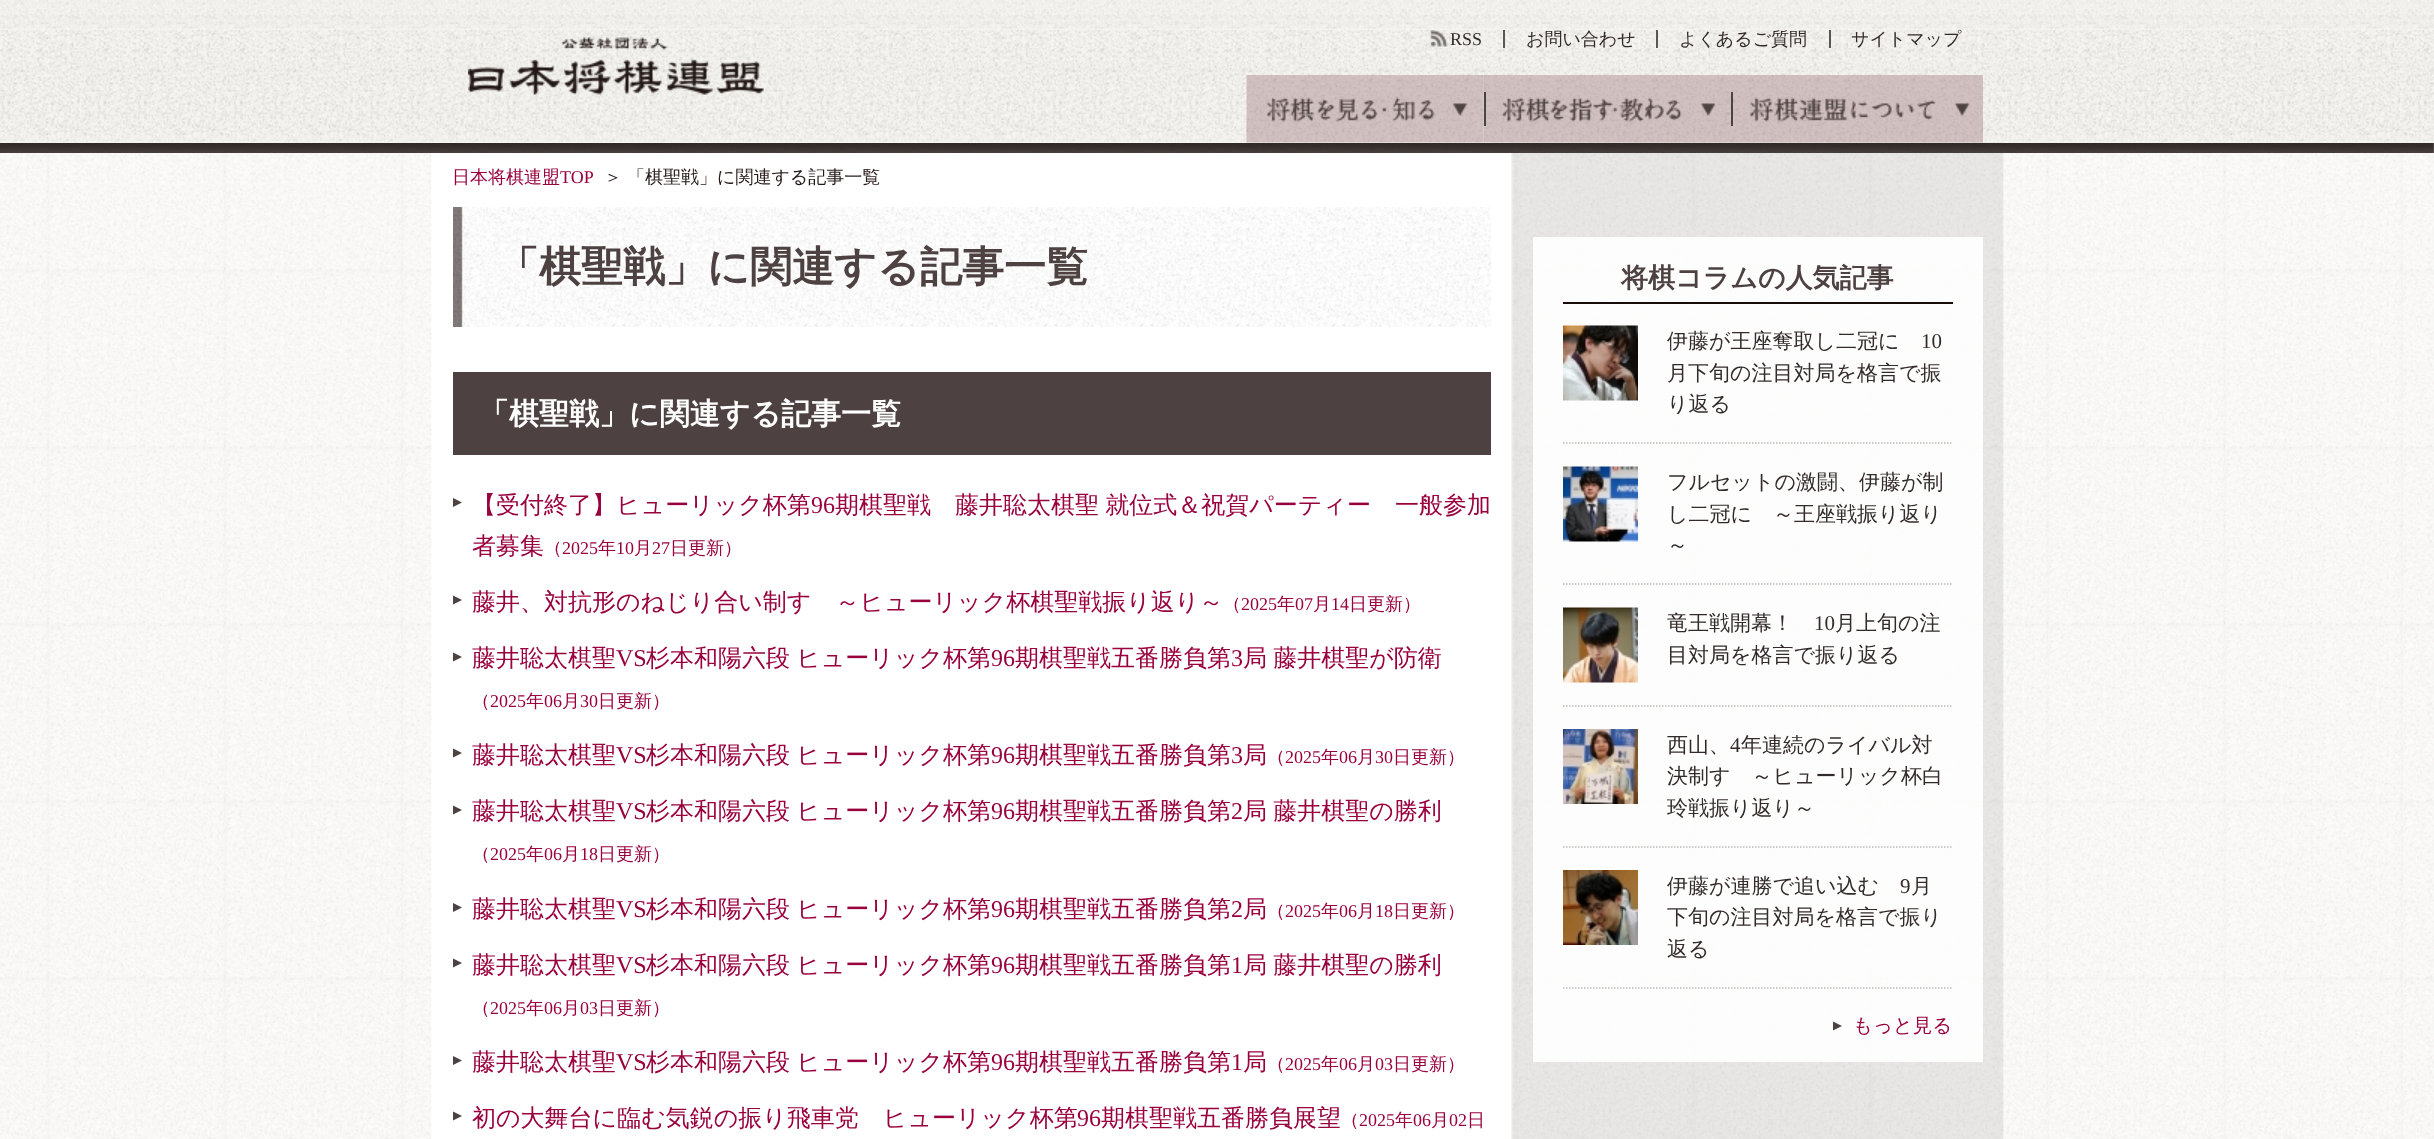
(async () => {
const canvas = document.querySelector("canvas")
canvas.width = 2434
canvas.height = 1139
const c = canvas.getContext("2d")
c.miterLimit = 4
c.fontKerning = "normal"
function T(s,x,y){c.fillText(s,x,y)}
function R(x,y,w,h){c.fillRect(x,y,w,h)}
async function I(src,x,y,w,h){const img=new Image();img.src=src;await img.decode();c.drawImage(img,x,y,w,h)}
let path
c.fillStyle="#fff"
R(0,0,2434,1139)
await I("1.png",0,142,2434,997)
await I("2.png",0,0,2434,143)
await I("3.png",468,37,296,58)
await I("4.png",1430,30,18,17)
c.font="18px Liberation Serif"
c.fillStyle="#332b2a"
T("RSS",1450,45)
c.fillStyle="#5b5553"
R(1503,30,2,18)
c.font="500 18px WenQuanYi Zen Hei"
c.fillStyle="#332b2a"
T("お問い合わせ",1526,45)
c.fillStyle="#5b5553"
R(1656,30,2,18)
c.fillStyle="#332b2a"
T("よくあるご質問",1679,45)
c.fillStyle="#5b5553"
R(1829,30,2,18)
c.fillStyle="#332b2a"
T("サイトマップ",1851,45)
await I("5.png",1246,75,238,68)
await I("6.png",1483,75,248,68)
c.fillStyle="#4a4342"
R(1484,92,2,34)
await I("7.png",1731,75,252,68)
R(1731,92,2,34)
await I("8.png",0,143,2434,10)
c.fillStyle="#99003e"
T("日本将棋連盟",452,183)
c.font="18px Liberation Serif"
T("TOP",560,183)
c.font="500 18px WenQuanYi Zen Hei"
c.fillStyle="#231815"
T("＞",604,183)
T("「棋聖戦」に関連する記事一覧",627,183)
await I("9.png",453,207,1038,120)
c.font="bold 42px WenQuanYi Zen Hei"
c.fillStyle="#4d4241"
T("「棋聖戦」に関連する記事一覧",497,281)
R(453,372,1038,83)
c.font="bold 30px WenQuanYi Zen Hei"
c.fillStyle="#fff"
T("「棋聖戦」に関連する記事一覧",479,424)
c.fillStyle="#4a4342"
path = new Path2D("M453 507v-9l9 4.5z")
c.fill(path)
c.font="500 24px WenQuanYi Zen Hei"
c.fillStyle="#99003e"
T("【受付終了】ヒューリック杯第",472,513)
c.font="24px Liberation Serif"
T("96",811,513)
c.wordSpacing="-1px"
c.font="500 24px WenQuanYi Zen Hei"
T("期棋聖戦　藤井聡太棋聖 就位式＆祝賀パーティー　一般参加",835,513)
c.wordSpacing="0px"
T("者募集",472,554)
c.font="500 18px WenQuanYi Zen Hei"
T("（",544,554)
c.font="18px Liberation Serif"
T("2025",562,554)
c.font="500 18px WenQuanYi Zen Hei"
T("年",598,554)
c.font="18px Liberation Serif"
T("10",616,554)
c.font="500 18px WenQuanYi Zen Hei"
T("月",634,554)
c.font="18px Liberation Serif"
T("27",652,554)
c.font="500 18px WenQuanYi Zen Hei"
T("日更新）",670,554)
c.fillStyle="#4a4342"
path = new Path2D("M453 604.5v-9l9 4.5z")
c.fill(path)
c.font="500 24px WenQuanYi Zen Hei"
c.fillStyle="#99003e"
T("藤井、対抗形のねじり合い制す　～ヒューリック杯棋聖戦振り返り～",472,610)
c.font="500 18px WenQuanYi Zen Hei"
T("（",1223,610)
c.font="18px Liberation Serif"
T("2025",1241,610)
c.font="500 18px WenQuanYi Zen Hei"
T("年",1277,610)
c.font="18px Liberation Serif"
T("07",1295,610)
c.font="500 18px WenQuanYi Zen Hei"
T("月",1313,610)
c.font="18px Liberation Serif"
T("14",1331,610)
c.font="500 18px WenQuanYi Zen Hei"
T("日更新）",1349,610)
c.fillStyle="#4a4342"
path = new Path2D("M453 661.5v-9l9 4.5z")
c.fill(path)
c.font="500 24px WenQuanYi Zen Hei"
c.fillStyle="#99003e"
T("藤井聡太棋聖",472,666)
c.font="24px Liberation Serif"
T("VS",616,666)
c.wordSpacing="-1px"
c.font="500 24px WenQuanYi Zen Hei"
T("杉本和陽六段 ヒューリック杯第",646,666)
c.wordSpacing="0px"
c.font="24px Liberation Serif"
T("96",991,666)
c.font="500 24px WenQuanYi Zen Hei"
T("期棋聖戦五番勝負第",1015,666)
c.font="24px Liberation Serif"
T("3",1231,666)
c.wordSpacing="-1px"
c.font="500 24px WenQuanYi Zen Hei"
T("局 藤井棋聖が防衛",1243,666)
c.wordSpacing="0px"
c.font="500 18px WenQuanYi Zen Hei"
T("（",472,707)
c.font="18px Liberation Serif"
T("2025",490,707)
c.font="500 18px WenQuanYi Zen Hei"
T("年",526,707)
c.font="18px Liberation Serif"
T("06",544,707)
c.font="500 18px WenQuanYi Zen Hei"
T("月",562,707)
c.font="18px Liberation Serif"
T("30",580,707)
c.font="500 18px WenQuanYi Zen Hei"
T("日更新）",598,707)
c.fillStyle="#4a4342"
path = new Path2D("M453 757.5v-9l9 4.5z")
c.fill(path)
c.font="500 24px WenQuanYi Zen Hei"
c.fillStyle="#99003e"
T("藤井聡太棋聖",472,763)
c.font="24px Liberation Serif"
T("VS",616,763)
c.wordSpacing="-1px"
c.font="500 24px WenQuanYi Zen Hei"
T("杉本和陽六段 ヒューリック杯第",646,763)
c.wordSpacing="0px"
c.font="24px Liberation Serif"
T("96",991,763)
c.font="500 24px WenQuanYi Zen Hei"
T("期棋聖戦五番勝負第",1015,763)
c.font="24px Liberation Serif"
T("3",1231,763)
c.font="500 24px WenQuanYi Zen Hei"
T("局",1243,763)
c.font="500 18px WenQuanYi Zen Hei"
T("（",1267,763)
c.font="18px Liberation Serif"
T("2025",1285,763)
c.font="500 18px WenQuanYi Zen Hei"
T("年",1321,763)
c.font="18px Liberation Serif"
T("06",1339,763)
c.font="500 18px WenQuanYi Zen Hei"
T("月",1357,763)
c.font="18px Liberation Serif"
T("30",1375,763)
c.font="500 18px WenQuanYi Zen Hei"
T("日更新）",1393,763)
c.fillStyle="#4a4342"
path = new Path2D("M453 814.5v-9l9 4.5z")
c.fill(path)
c.font="500 24px WenQuanYi Zen Hei"
c.fillStyle="#99003e"
T("藤井聡太棋聖",472,819)
c.font="24px Liberation Serif"
T("VS",616,819)
c.wordSpacing="-1px"
c.font="500 24px WenQuanYi Zen Hei"
T("杉本和陽六段 ヒューリック杯第",646,819)
c.wordSpacing="0px"
c.font="24px Liberation Serif"
T("96",991,819)
c.font="500 24px WenQuanYi Zen Hei"
T("期棋聖戦五番勝負第",1015,819)
c.font="24px Liberation Serif"
T("2",1231,819)
c.wordSpacing="-1px"
c.font="500 24px WenQuanYi Zen Hei"
T("局 藤井棋聖の勝利",1243,819)
c.wordSpacing="0px"
c.font="500 18px WenQuanYi Zen Hei"
T("（",472,860)
c.font="18px Liberation Serif"
T("2025",490,860)
c.font="500 18px WenQuanYi Zen Hei"
T("年",526,860)
c.font="18px Liberation Serif"
T("06",544,860)
c.font="500 18px WenQuanYi Zen Hei"
T("月",562,860)
c.font="18px Liberation Serif"
T("18",580,860)
c.font="500 18px WenQuanYi Zen Hei"
T("日更新）",598,860)
c.fillStyle="#4a4342"
path = new Path2D("M453 912v-9l9 4.5z")
c.fill(path)
c.font="500 24px WenQuanYi Zen Hei"
c.fillStyle="#99003e"
T("藤井聡太棋聖",472,917)
c.font="24px Liberation Serif"
T("VS",616,917)
c.wordSpacing="-1px"
c.font="500 24px WenQuanYi Zen Hei"
T("杉本和陽六段 ヒューリック杯第",646,917)
c.wordSpacing="0px"
c.font="24px Liberation Serif"
T("96",991,917)
c.font="500 24px WenQuanYi Zen Hei"
T("期棋聖戦五番勝負第",1015,917)
c.font="24px Liberation Serif"
T("2",1231,917)
c.font="500 24px WenQuanYi Zen Hei"
T("局",1243,917)
c.font="500 18px WenQuanYi Zen Hei"
T("（",1267,917)
c.font="18px Liberation Serif"
T("2025",1285,917)
c.font="500 18px WenQuanYi Zen Hei"
T("年",1321,917)
c.font="18px Liberation Serif"
T("06",1339,917)
c.font="500 18px WenQuanYi Zen Hei"
T("月",1357,917)
c.font="18px Liberation Serif"
T("18",1375,917)
c.font="500 18px WenQuanYi Zen Hei"
T("日更新）",1393,917)
c.fillStyle="#4a4342"
path = new Path2D("M453 967.5v-9l9 4.5z")
c.fill(path)
c.font="500 24px WenQuanYi Zen Hei"
c.fillStyle="#99003e"
T("藤井聡太棋聖",472,973)
c.font="24px Liberation Serif"
T("VS",616,973)
c.wordSpacing="-1px"
c.font="500 24px WenQuanYi Zen Hei"
T("杉本和陽六段 ヒューリック杯第",646,973)
c.wordSpacing="0px"
c.font="24px Liberation Serif"
T("96",991,973)
c.font="500 24px WenQuanYi Zen Hei"
T("期棋聖戦五番勝負第",1015,973)
c.font="24px Liberation Serif"
T("1",1231,973)
c.wordSpacing="-1px"
c.font="500 24px WenQuanYi Zen Hei"
T("局 藤井棋聖の勝利",1243,973)
c.wordSpacing="0px"
c.font="500 18px WenQuanYi Zen Hei"
T("（",472,1014)
c.font="18px Liberation Serif"
T("2025",490,1014)
c.font="500 18px WenQuanYi Zen Hei"
T("年",526,1014)
c.font="18px Liberation Serif"
T("06",544,1014)
c.font="500 18px WenQuanYi Zen Hei"
T("月",562,1014)
c.font="18px Liberation Serif"
T("03",580,1014)
c.font="500 18px WenQuanYi Zen Hei"
T("日更新）",598,1014)
c.fillStyle="#4a4342"
path = new Path2D("M453 1065v-9l9 4.5z")
c.fill(path)
c.font="500 24px WenQuanYi Zen Hei"
c.fillStyle="#99003e"
T("藤井聡太棋聖",472,1070)
c.font="24px Liberation Serif"
T("VS",616,1070)
c.wordSpacing="-1px"
c.font="500 24px WenQuanYi Zen Hei"
T("杉本和陽六段 ヒューリック杯第",646,1070)
c.wordSpacing="0px"
c.font="24px Liberation Serif"
T("96",991,1070)
c.font="500 24px WenQuanYi Zen Hei"
T("期棋聖戦五番勝負第",1015,1070)
c.font="24px Liberation Serif"
T("1",1231,1070)
c.font="500 24px WenQuanYi Zen Hei"
T("局",1243,1070)
c.font="500 18px WenQuanYi Zen Hei"
T("（",1267,1070)
c.font="18px Liberation Serif"
T("2025",1285,1070)
c.font="500 18px WenQuanYi Zen Hei"
T("年",1321,1070)
c.font="18px Liberation Serif"
T("06",1339,1070)
c.font="500 18px WenQuanYi Zen Hei"
T("月",1357,1070)
c.font="18px Liberation Serif"
T("03",1375,1070)
c.font="500 18px WenQuanYi Zen Hei"
T("日更新）",1393,1070)
c.fillStyle="#4a4342"
path = new Path2D("M453 1120.5v-9l9 4.5z")
c.fill(path)
c.font="500 24px WenQuanYi Zen Hei"
c.fillStyle="#99003e"
T("初の大舞台に臨む気鋭の振り飛車党　ヒューリック杯第",472,1126)
c.font="24px Liberation Serif"
T("96",1077,1126)
c.font="500 24px WenQuanYi Zen Hei"
T("期棋聖戦五番勝負展望",1101,1126)
c.font="500 18px WenQuanYi Zen Hei"
T("（",1341,1126)
c.font="18px Liberation Serif"
T("2025",1359,1126)
c.font="500 18px WenQuanYi Zen Hei"
T("年",1395,1126)
c.font="18px Liberation Serif"
T("06",1413,1126)
c.font="500 18px WenQuanYi Zen Hei"
T("月",1431,1126)
c.font="18px Liberation Serif"
T("02",1449,1126)
c.font="500 18px WenQuanYi Zen Hei"
T("日",1467,1126)
c.fillStyle="#ffffffe6"
R(1533,237,450,825)
c.fillStyle="#170c0a"
R(1563,302,390,2)
c.font="bold 27px WenQuanYi Zen Hei"
c.fillStyle="#4d4241"
T("将棋コラムの人気記事",1621,287)
path = new Path2D("M1563 443h390")
c.strokeStyle="#bebbbb"
c.lineWidth=1.5
c.setLineDash([1.5,1.5])
c.stroke(path)
await I("10.png",1563,325,75,76)
c.font="500 21px WenQuanYi Zen Hei"
c.fillStyle="#332b2a"
T("伊藤が王座奪取し二冠に",1667,348)
c.font="21px Liberation Serif"
T("10",1921,348)
c.font="500 21px WenQuanYi Zen Hei"
T("月下旬の注目対局を格言で振",1667,380)
T("り返る",1667,411)
path = new Path2D("M1563 584h390")
c.stroke(path)
await I("11.png",1563,466,75,76)
T("フルセットの激闘、伊藤が制",1667,489)
T("し二冠に　～王座戦振り返り",1667,521)
T("～",1667,552)
path = new Path2D("M1563 706h390")
c.stroke(path)
await I("12.png",1563,607,75,76)
T("竜王戦開幕！",1667,630)
c.font="21px Liberation Serif"
T("10",1814,630)
c.font="500 21px WenQuanYi Zen Hei"
T("月上旬の注",1835,630)
T("目対局を格言で振り返る",1667,662)
path = new Path2D("M1563 847h390")
c.stroke(path)
await I("13.png",1563,729,75,75)
T("西山、",1667,752)
c.font="21px Liberation Serif"
T("4",1730,752)
c.font="500 21px WenQuanYi Zen Hei"
T("年連続のライバル対",1741,752)
T("決制す　～ヒューリック杯白",1667,783)
T("玲戦振り返り～",1667,815)
path = new Path2D("M1563 988h390")
c.stroke(path)
await I("14.png",1563,870,75,75)
T("伊藤が連勝で追い込む",1667,893)
c.font="21px Liberation Serif"
T("9",1900,893)
c.font="500 21px WenQuanYi Zen Hei"
T("月",1911,893)
T("下旬の注目対局を格言で振り",1667,924)
T("返る",1667,956)
c.fillStyle="#4a4342"
path = new Path2D("M1833 1030.5v-9l9 4.5z")
c.fill(path)
c.font="500 19.5px WenQuanYi Zen Hei"
c.fillStyle="#99003e"
T("もっと見る",1853,1032)
})()
